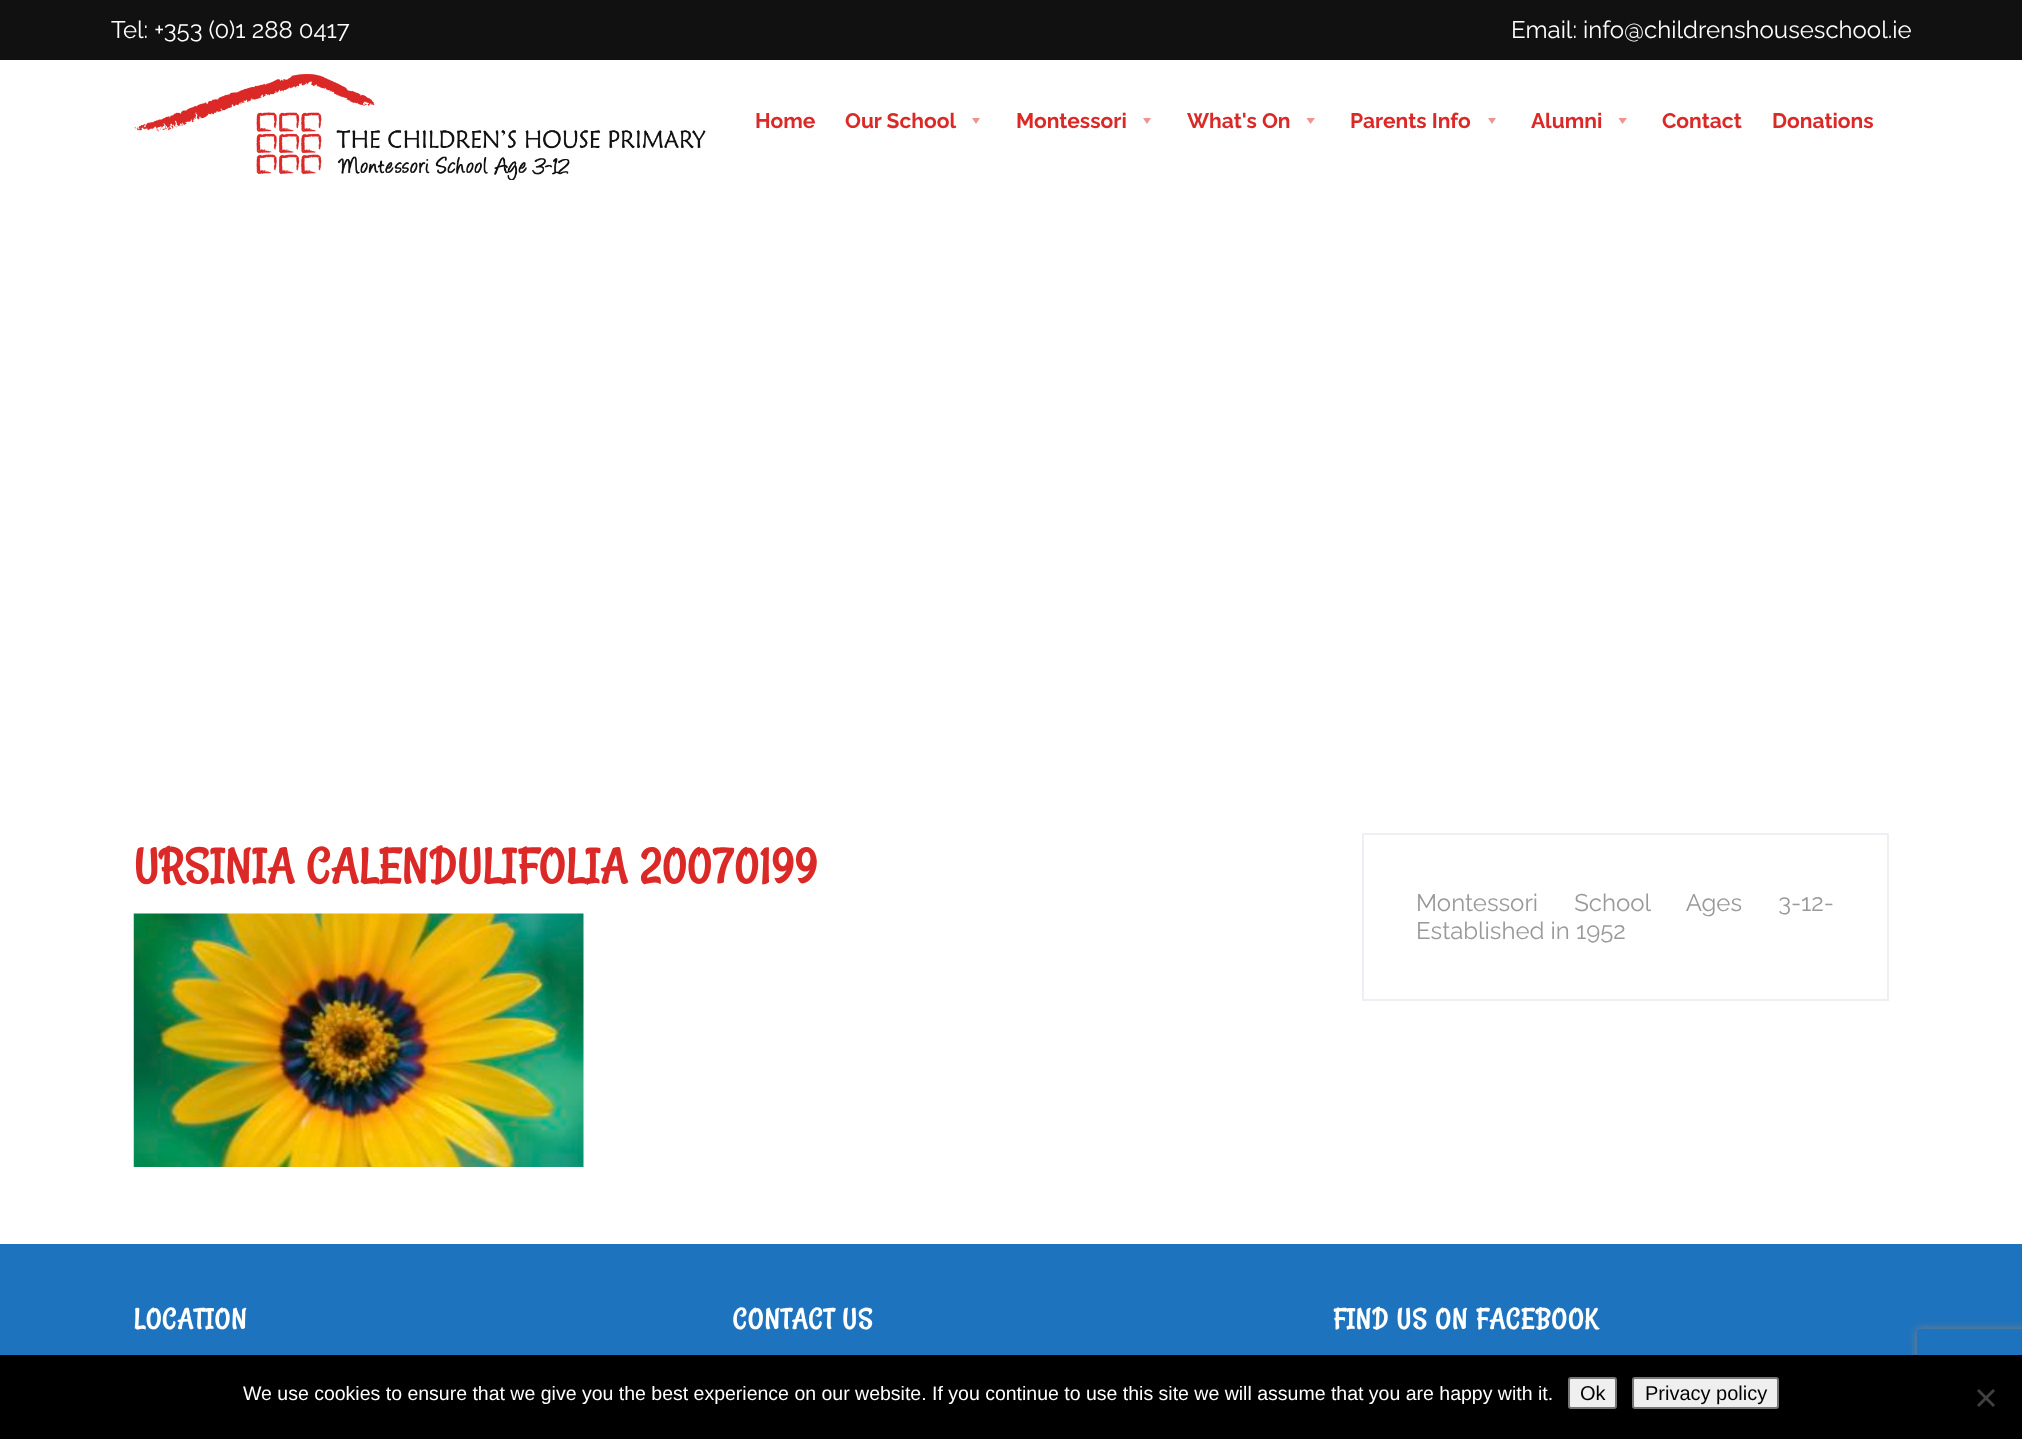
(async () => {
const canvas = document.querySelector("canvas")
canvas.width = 2022
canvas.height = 1439
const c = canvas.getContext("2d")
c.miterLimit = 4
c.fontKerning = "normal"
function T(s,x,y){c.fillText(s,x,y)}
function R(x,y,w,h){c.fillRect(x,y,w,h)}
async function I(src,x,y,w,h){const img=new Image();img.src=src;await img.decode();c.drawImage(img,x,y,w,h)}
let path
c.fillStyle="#fff"
R(0,0,2022,1439)
c.fillStyle="#111"
R(0,0,2022,60)
c.font="24px Raleway"
c.fillStyle="#fff"
T("Tel: +353 (0)1 288 0417",111,38)
T("Email: info@childrenshouseschool.ie",1511,38)
await I("1.png",133,74,573,106)
c.font="bold 21px Raleway"
c.fillStyle="#db2927"
T("Home",755,128)
T("Our School",845,128)
c.fillStyle="#ed9493"
path = new Path2D("M980 118l-4 6l-4-6z")
c.fill(path)
c.fillStyle="#db2927"
T("Montessori",1016,128)
c.fillStyle="#ed9493"
path = new Path2D("M1151 118l-4 6l-4-6z")
c.fill(path)
c.fillStyle="#db2927"
T("What's On",1187,128)
c.fillStyle="#ed9493"
path = new Path2D("M1315 118l-4.5 6l-4-6z")
c.fill(path)
c.fillStyle="#db2927"
T("Parents Info",1350,128)
c.fillStyle="#ed9493"
path = new Path2D("M1496 118l-4 6l-4-6z")
c.fill(path)
c.fillStyle="#db2927"
T("Alumni",1531,128)
c.fillStyle="#ed9493"
path = new Path2D("M1627 118l-4.5 6l-4-6z")
c.fill(path)
c.fillStyle="#db2927"
T("Contact",1662,128)
T("Donations",1772,128)
c.letterSpacing="1.5px"
c.font="bold 48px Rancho"
T("URSINIA CALENDULIFOLIA 20070199",134,880)
await I("2.png",133,913,451,254)
c.strokeStyle="#eeeff5"
c.lineWidth=2
c.strokeRect(1363,834,525,166)
c.letterSpacing="0px"
c.wordSpacing="30px"
c.font="24px Raleway"
c.fillStyle="#999"
T("Montessori School Ages 3-12-",1416,911)
c.wordSpacing="0px"
T("Established in 1952",1416,939)
c.fillStyle="#1e73be"
R(0,1244,2022,111)
c.letterSpacing="1.5px"
c.font="bold 28px Rancho"
c.fillStyle="#fff"
T("LOCATION",134,1327)
T("CONTACT US",733,1327)
T("FIND US ON FACEBOOK",1333,1327)
c.save()
path = new Path2D("M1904 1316h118v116h-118zm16 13h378c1.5 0 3 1.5 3 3v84c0 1.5-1.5 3-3 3h-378c-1.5 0-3-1.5-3-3v-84c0-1.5 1.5-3 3-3z")
c.clip(path,"evenodd")
c.fillStyle="#808080"
c.filter="blur(4px)"
c.beginPath()
c.roundRect(1917,1329,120,90,3)
c.fill()
c.filter="none"
c.restore()
c.fillStyle="#000"
R(0,1355,2022,84)
c.letterSpacing="0px"
c.font="19.5px Liberation Sans"
c.fillStyle="#fff"
T("We use cookies to ensure that we give you the best experience on our website. If you continue to use this site we will assume that you are happy with it.",243,1400)
c.fillStyle="#efefef"
c.beginPath()
c.roundRect(1569,1378,47,30,2)
c.fill()
c.strokeStyle="#767676"
c.stroke()
c.font="20px Liberation Sans"
c.fillStyle="#000"
T("Ok",1580,1400)
c.fillStyle="#efefef"
c.beginPath()
c.roundRect(1633,1378,145,30,2)
c.fill()
c.stroke()
c.fillStyle="#000"
T("Privacy policy",1645,1400)
c.fillStyle="#404040"
path = new Path2D("M1993 1389l2 2l-16 16l-2-2z")
c.fill(path)
path = new Path2D("M1977 1391l2-2l16 16l-2 2z")
c.fill(path)
})()
